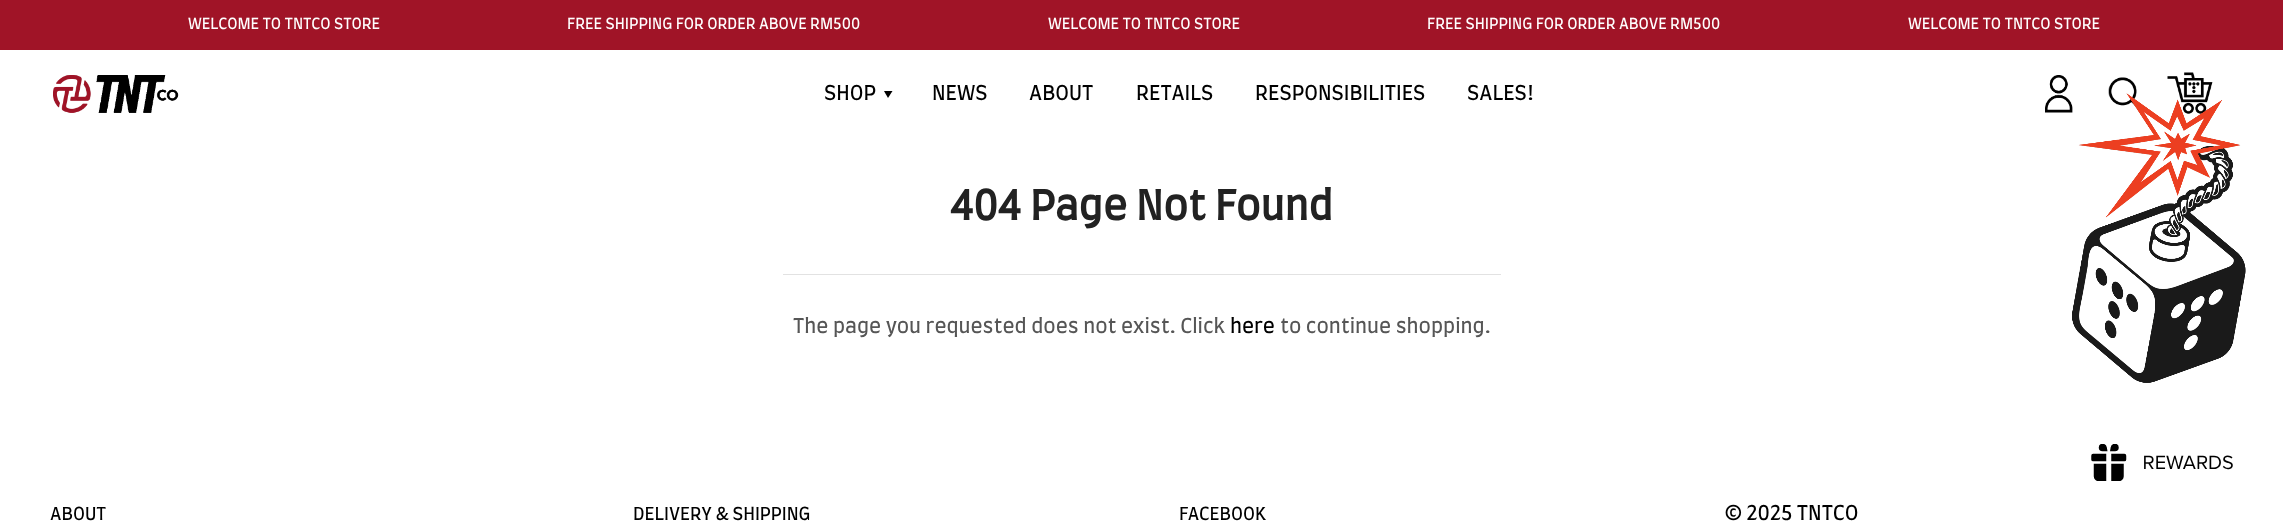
(async () => {
const canvas = document.querySelector("canvas")
canvas.width = 2283
canvas.height = 525
const c = canvas.getContext("2d")
c.miterLimit = 4
c.fontKerning = "normal"
function T(s,x,y){c.fillText(s,x,y)}
function R(x,y,w,h){c.fillRect(x,y,w,h)}
async function I(src,x,y,w,h){const img=new Image();img.src=src;await img.decode();c.drawImage(img,x,y,w,h)}
let path
c.fillStyle="#fff"
R(0,0,2283,525)
c.fillStyle="#a01427"
R(0,0,2283,50)
c.font="15px Farro"
c.fillStyle="#fff"
T("WELCOME TO TNTCO STORE",188,29)
T("FREE SHIPPING FOR ORDER ABOVE RM500",567,29)
T("WELCOME TO TNTCO STORE",1048,29)
T("FREE SHIPPING FOR ORDER ABOVE RM500",1427,29)
T("WELCOME TO TNTCO STORE",1908,29)
c.fillStyle="#0000004d"
c.filter="blur(0.5px)"
c.beginPath()
c.rect(1,53,2282,85)
c.fill()
c.filter="none"
c.fillStyle="#fff"
R(0,52,2283,86)
await I("1.png",53,75,126,38)
c.font="20px Farro"
c.fillStyle="#000"
T("SHOP",824,100)
path = new Path2D("M884 91h8.5l-4.5 7z")
c.fill(path)
T("NEWS",932,100)
T("ABOUT",1029,100)
T("RETAILS",1136,100)
T("RESPONSIBILITIES",1255,100)
T("SALES!",1467,100)
await I("2.png",2045,75,28,38)
await I("3.png",2108,77,29,30)
await I("4.png",2167,72,46,42)
c.font="bold 40px Farro"
c.fillStyle="#222"
T("404 Page Not Found",950,220)
c.fillStyle="#e2e2e2"
R(783,274,718,1)
c.font="20px Farro"
c.fillStyle="#565656"
T("The page you requested does not exist. Click",793,333)
c.fillStyle="#000"
T("here",1230,333)
c.fillStyle="#565656"
T("to continue shopping.",1280,333)
c.font="17.5px Farro"
c.fillStyle="#000"
T("ABOUT",50,520)
T("DELIVERY & SHIPPING",633,520)
T("FACEBOOK",1179,520)
c.font="20px Farro"
T("© 2025 TNTCO",1725,520)
await I("5.png",2072,93,174,290)
await I("6.png",2091,444,142,37)
})()
